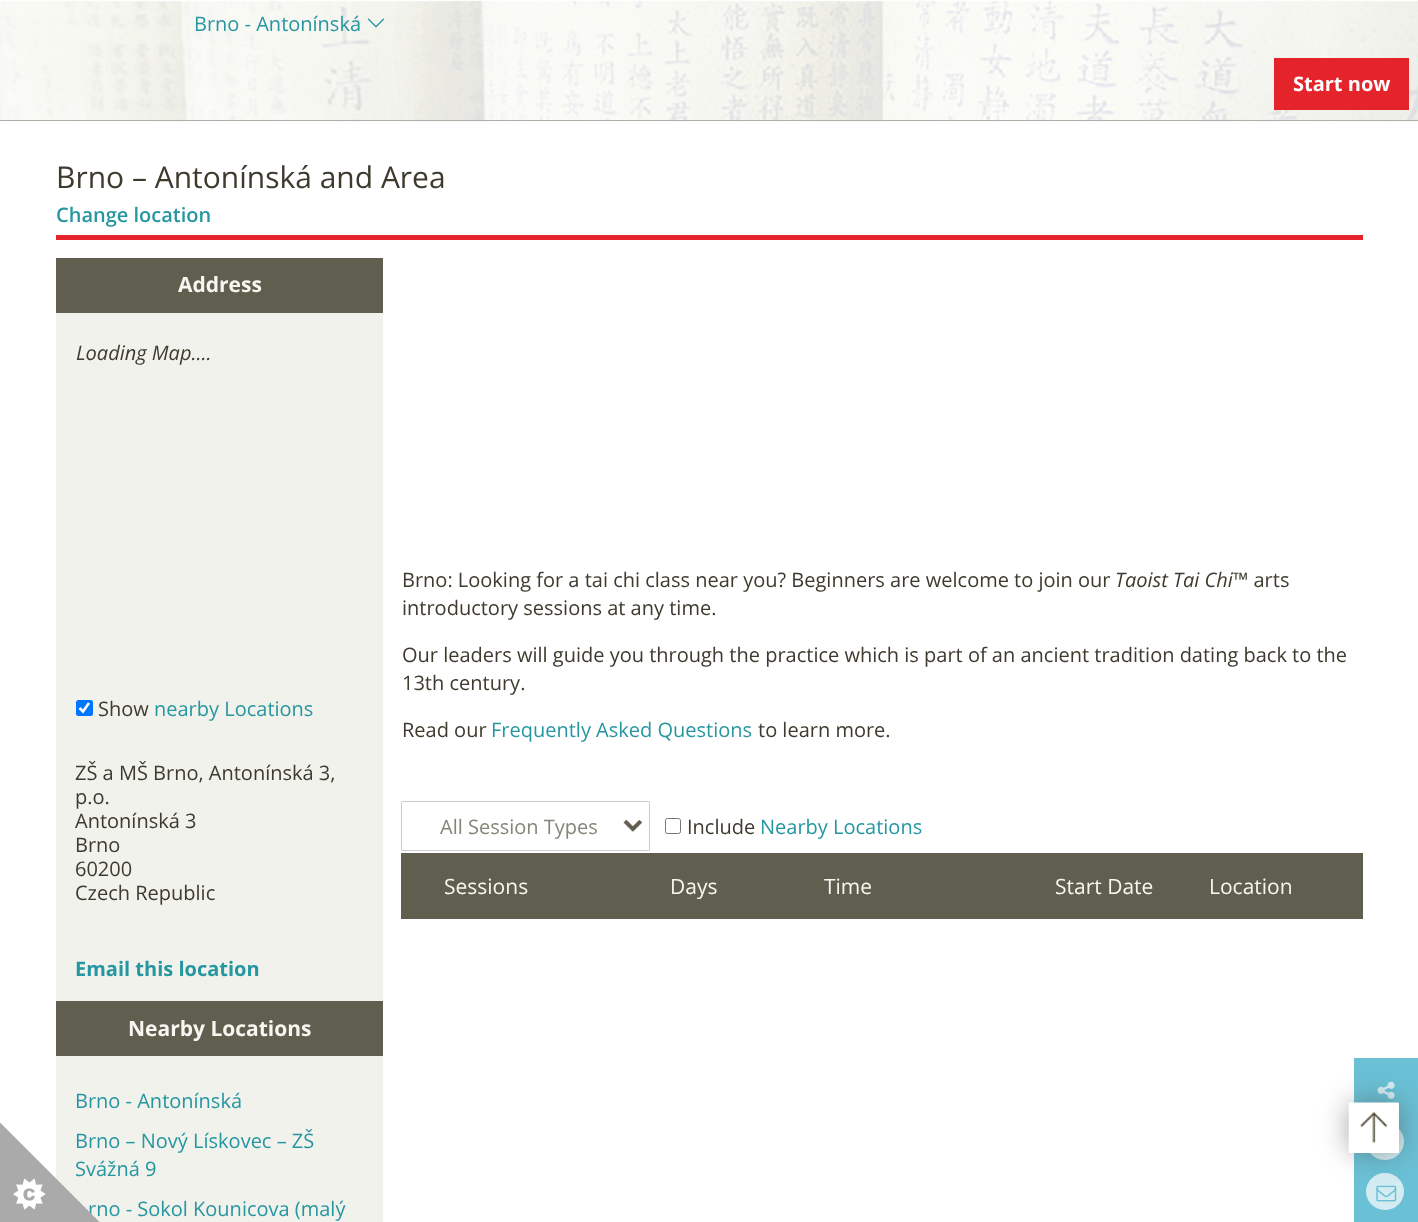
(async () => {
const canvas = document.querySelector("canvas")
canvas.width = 1418
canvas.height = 1222
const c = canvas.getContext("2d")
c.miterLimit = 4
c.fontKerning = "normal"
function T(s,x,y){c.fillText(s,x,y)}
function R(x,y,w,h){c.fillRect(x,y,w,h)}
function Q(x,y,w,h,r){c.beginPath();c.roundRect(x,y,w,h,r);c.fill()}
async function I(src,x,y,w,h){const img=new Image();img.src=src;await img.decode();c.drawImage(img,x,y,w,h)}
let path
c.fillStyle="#fff"
R(0,0,1418,1222)
await I("1.png",0,0,1418,122)
c.fillStyle="#b1aea7"
R(0,120,1418,1)
c.font="20px Open Sans"
c.fillStyle="#2696a1"
T("Brno - Antonínská",194,31)
await I("2.png",367,18,18,10)
c.fillStyle="#e4242a"
R(1274,58,135,52)
c.font="bold 20px Open Sans"
c.fillStyle="#fff"
T("Start now",1293,91)
c.fillStyle="#e4242a"
R(56,235,1307,5)
c.font="30px Open Sans"
c.fillStyle="#3e3a2d"
T("Brno – Antonínská and Area",56,188)
c.font="600 20px Open Sans"
c.fillStyle="#2696a1"
T("Change location",56,222)
c.fillStyle="#f1f2ec"
R(56,313,327,909)
c.fillStyle="#605e4e"
R(56,258,327,55)
c.font="bold 21px Open Sans"
c.fillStyle="#f7f6f1"
T("Address",178,292)
c.font="italic 20px Open Sans"
c.fillStyle="#3e3a2d"
T("Loading Map....",76,360)
c.fillStyle="#0075ff"
Q(76,700,17,16,2.5)
path = new Path2D("M79.5 708l3.5 3.5l6-8.5")
c.strokeStyle="#fff"
c.lineWidth=2.6
c.stroke(path)
c.font="20px Open Sans"
c.fillStyle="#3e3a2d"
T("Show",98,716)
c.fillStyle="#2696a1"
T("nearby Locations",154,716)
c.fillStyle="#3e3a2d"
T("ZŠ a MŠ Brno, Antonínská 3,",75,780)
T("p.o.",75,804)
T("Antonínská 3",75,828)
T("Brno",75,852)
T("60200",75,876)
T("Czech Republic",75,900)
c.font="bold 20px Open Sans"
c.fillStyle="#2696a1"
T("Email this location",75,976)
c.fillStyle="#605e4e"
R(56,1001,327,55)
c.font="bold 21px Open Sans"
c.fillStyle="#f7f6f1"
T("Nearby Locations",128,1036)
c.font="20px Open Sans"
c.fillStyle="#2696a1"
T("Brno - Antonínská",75,1108)
T("Brno – Nový Lískovec – ZŠ",75,1148)
T("Svážná 9",75,1176)
T("rno - Sokol Kounicova (malý",88,1216)
c.fillStyle="#3e3a2d"
T("Brno: Looking for a tai chi class near you? Beginners are welcome to join our",402,587)
c.font="italic 20px Open Sans"
T("Taoist Tai Chi",1115,587)
c.font="20px Open Sans"
T("™ arts",1233,587)
T("introductory sessions at any time.",402,615)
T("Our leaders will guide you through the practice which is part of an ancient tradition dating back to the",402,662)
T("13th century.",402,690)
T("Read our",402,737)
c.fillStyle="#2696a1"
T("Frequently Asked Questions",491,737)
c.fillStyle="#3e3a2d"
T("to learn more.",758,737)
await I("3.png",623,820,20,12)
c.beginPath()
c.roundRect(401.5,801.5,248,49,.5)
c.strokeStyle="#ccc"
c.lineWidth=1
c.stroke()
c.fillStyle="#878577"
T("All Session Types",440,834)
c.beginPath()
c.roundRect(665.5,818.5,15,15,2)
c.strokeStyle="#767676"
c.stroke()
c.fillStyle="#3e3a2d"
T("Include",687,834)
c.fillStyle="#2696a1"
T("Nearby Locations",760,834)
c.fillStyle="#605e4e"
R(401,853,962,66)
c.font="21px Open Sans"
c.fillStyle="#f7f6f1"
T("Sessions",444,894)
T("Days",670,894)
T("Time",824,894)
T("Start Date",1055,894)
T("Location",1209,894)
c.fillStyle="#6ac0d5"
R(1354,1058,64,164)
await I("4.png",1377,1081,18,18)
c.fillStyle="#d2ecf2"
Q(1366,1123,38,37,18.5)
Q(1366,1173,38,37,18.5)
await I("5.png",1376,1185,21,17)
await I("6.png",0,1123,100,99)
c.fillStyle="#4a4a4a8f"
c.filter="blur(14.5px)"
c.beginPath()
c.rect(1350,1104,48,47)
c.fill()
c.filter="none"
c.fillStyle="#fff"
R(1349,1103,50,50)
await I("7.png",1348,1102,51,50)
})()
